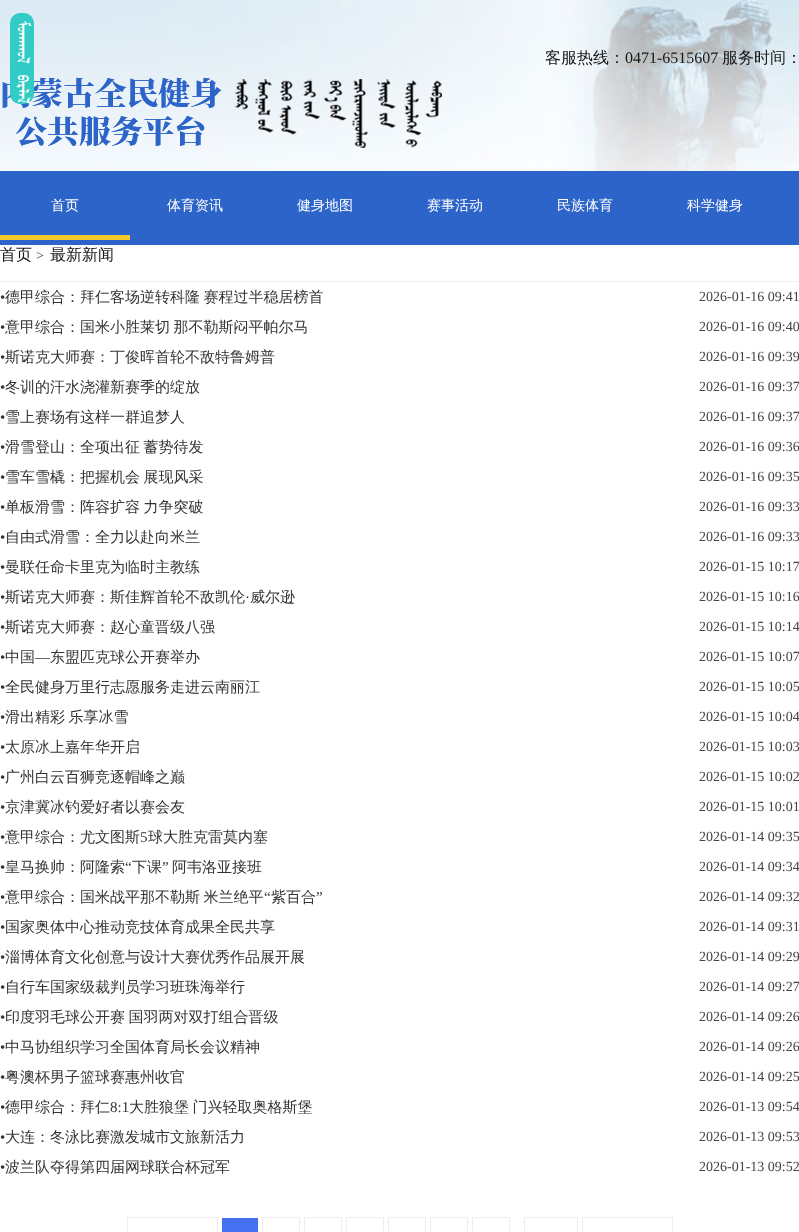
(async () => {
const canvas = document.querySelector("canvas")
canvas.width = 799
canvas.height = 1232
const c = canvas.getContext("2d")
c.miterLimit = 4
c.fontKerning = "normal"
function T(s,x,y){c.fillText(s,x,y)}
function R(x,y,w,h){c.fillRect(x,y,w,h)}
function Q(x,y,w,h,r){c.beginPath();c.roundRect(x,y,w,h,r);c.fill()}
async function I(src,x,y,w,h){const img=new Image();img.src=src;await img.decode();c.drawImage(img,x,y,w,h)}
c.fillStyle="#fff"
R(0,0,799,1232)
await I("1.png",0,0,799,171)
await I("2.png",2,77,440,71)
c.fillStyle="#32cbc5"
Q(10,13,24,91,10)
c.letterSpacing="-0.4px"
c.wordSpacing="8px"
c.font="25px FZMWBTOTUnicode"
c.fillStyle="#fff"
c.save()
c.translate(14,21)
c.rotate(90 * Math.PI / 180)
c.fillText("ᠮᠤᠡᠭᠭᠤᠯ ᠪᠠᠷᠯᠠᠯ",0,0)
c.restore()
c.letterSpacing="0px"
c.wordSpacing="0px"
c.font="500 16px WenQuanYi Zen Hei"
c.fillStyle="#161616"
T("客服热线：",545,63)
c.font="16px Liberation Serif"
T("0471-6515607",625,63)
c.font="500 16px WenQuanYi Zen Hei"
T("服务时间：",722,63)
c.fillStyle="#2d64c9"
R(0,171,799,74)
c.fillStyle="#f1c92b"
R(0,235,130,5)
c.font="500 14px WenQuanYi Zen Hei"
c.fillStyle="#fff"
T("首页",51,210)
T("体育资讯",167,210)
T("健身地图",297,210)
T("赛事活动",427,210)
T("民族体育",557,210)
T("科学健身",687,210)
c.fillStyle="#efefef"
R(0,281,799,1)
c.font="500 16px WenQuanYi Zen Hei"
c.fillStyle="#161616"
T("首页",0,260)
c.font="14px Liberation Serif"
c.fillStyle="#444"
T(">",36,260)
c.font="500 16px WenQuanYi Zen Hei"
c.fillStyle="#161616"
T("最新新闻",50,260)
c.font="15px Liberation Serif"
c.fillStyle="#333"
T("•",0,302)
c.wordSpacing="-1px"
c.font="500 15px WenQuanYi Zen Hei"
T("德甲综合：拜仁客场逆转科隆 赛程过半稳居榜首",5,302)
c.wordSpacing="0px"
c.font="14px Liberation Serif"
c.fillStyle="#444"
T("2026-01-16 09:41",699,301)
c.font="15px Liberation Serif"
c.fillStyle="#333"
T("•",0,332)
c.wordSpacing="-1px"
c.font="500 15px WenQuanYi Zen Hei"
T("意甲综合：国米小胜莱切 那不勒斯闷平帕尔马",5,332)
c.wordSpacing="0px"
c.font="14px Liberation Serif"
c.fillStyle="#444"
T("2026-01-16 09:40",699,331)
c.font="15px Liberation Serif"
c.fillStyle="#333"
T("•",0,362)
c.font="500 15px WenQuanYi Zen Hei"
T("斯诺克大师赛：丁俊晖首轮不敌特鲁姆普",5,362)
c.font="14px Liberation Serif"
c.fillStyle="#444"
T("2026-01-16 09:39",699,361)
c.font="15px Liberation Serif"
c.fillStyle="#333"
T("•",0,392)
c.font="500 15px WenQuanYi Zen Hei"
T("冬训的汗水浇灌新赛季的绽放",5,392)
c.font="14px Liberation Serif"
c.fillStyle="#444"
T("2026-01-16 09:37",699,391)
c.font="15px Liberation Serif"
c.fillStyle="#333"
T("•",0,422)
c.font="500 15px WenQuanYi Zen Hei"
T("雪上赛场有这样一群追梦人",5,422)
c.font="14px Liberation Serif"
c.fillStyle="#444"
T("2026-01-16 09:37",699,421)
c.font="15px Liberation Serif"
c.fillStyle="#333"
T("•",0,452)
c.wordSpacing="-1px"
c.font="500 15px WenQuanYi Zen Hei"
T("滑雪登山：全项出征 蓄势待发",5,452)
c.wordSpacing="0px"
c.font="14px Liberation Serif"
c.fillStyle="#444"
T("2026-01-16 09:36",699,451)
c.font="15px Liberation Serif"
c.fillStyle="#333"
T("•",0,482)
c.wordSpacing="-1px"
c.font="500 15px WenQuanYi Zen Hei"
T("雪车雪橇：把握机会 展现风采",5,482)
c.wordSpacing="0px"
c.font="14px Liberation Serif"
c.fillStyle="#444"
T("2026-01-16 09:35",699,481)
c.font="15px Liberation Serif"
c.fillStyle="#333"
T("•",0,512)
c.wordSpacing="-1px"
c.font="500 15px WenQuanYi Zen Hei"
T("单板滑雪：阵容扩容 力争突破",5,512)
c.wordSpacing="0px"
c.font="14px Liberation Serif"
c.fillStyle="#444"
T("2026-01-16 09:33",699,511)
c.font="15px Liberation Serif"
c.fillStyle="#333"
T("•",0,542)
c.font="500 15px WenQuanYi Zen Hei"
T("自由式滑雪：全力以赴向米兰",5,542)
c.font="14px Liberation Serif"
c.fillStyle="#444"
T("2026-01-16 09:33",699,541)
c.font="15px Liberation Serif"
c.fillStyle="#333"
T("•",0,572)
c.font="500 15px WenQuanYi Zen Hei"
T("曼联任命卡里克为临时主教练",5,572)
c.font="14px Liberation Serif"
c.fillStyle="#444"
T("2026-01-15 10:17",699,571)
c.font="15px Liberation Serif"
c.fillStyle="#333"
T("•",0,602)
c.font="500 15px WenQuanYi Zen Hei"
T("斯诺克大师赛：斯佳辉首轮不敌凯伦",5,602)
c.font="15px Liberation Serif"
T("·",245,602)
c.font="500 15px WenQuanYi Zen Hei"
T("威尔逊",250,602)
c.font="14px Liberation Serif"
c.fillStyle="#444"
T("2026-01-15 10:16",699,601)
c.font="15px Liberation Serif"
c.fillStyle="#333"
T("•",0,632)
c.font="500 15px WenQuanYi Zen Hei"
T("斯诺克大师赛：赵心童晋级八强",5,632)
c.font="14px Liberation Serif"
c.fillStyle="#444"
T("2026-01-15 10:14",699,631)
c.font="15px Liberation Serif"
c.fillStyle="#333"
T("•",0,662)
c.font="500 15px WenQuanYi Zen Hei"
T("中国",5,662)
c.font="15px Liberation Serif"
T("―",35,662)
c.font="500 15px WenQuanYi Zen Hei"
T("东盟匹克球公开赛举办",50,662)
c.font="14px Liberation Serif"
c.fillStyle="#444"
T("2026-01-15 10:07",699,661)
c.font="15px Liberation Serif"
c.fillStyle="#333"
T("•",0,692)
c.font="500 15px WenQuanYi Zen Hei"
T("全民健身万里行志愿服务走进云南丽江",5,692)
c.font="14px Liberation Serif"
c.fillStyle="#444"
T("2026-01-15 10:05",699,691)
c.font="15px Liberation Serif"
c.fillStyle="#333"
T("•",0,722)
c.wordSpacing="-1px"
c.font="500 15px WenQuanYi Zen Hei"
T("滑出精彩 乐享冰雪",5,722)
c.wordSpacing="0px"
c.font="14px Liberation Serif"
c.fillStyle="#444"
T("2026-01-15 10:04",699,721)
c.font="15px Liberation Serif"
c.fillStyle="#333"
T("•",0,752)
c.font="500 15px WenQuanYi Zen Hei"
T("太原冰上嘉年华开启",5,752)
c.font="14px Liberation Serif"
c.fillStyle="#444"
T("2026-01-15 10:03",699,751)
c.font="15px Liberation Serif"
c.fillStyle="#333"
T("•",0,782)
c.font="500 15px WenQuanYi Zen Hei"
T("广州白云百狮竞逐帽峰之巅",5,782)
c.font="14px Liberation Serif"
c.fillStyle="#444"
T("2026-01-15 10:02",699,781)
c.font="15px Liberation Serif"
c.fillStyle="#333"
T("•",0,812)
c.font="500 15px WenQuanYi Zen Hei"
T("京津冀冰钓爱好者以赛会友",5,812)
c.font="14px Liberation Serif"
c.fillStyle="#444"
T("2026-01-15 10:01",699,811)
c.font="15px Liberation Serif"
c.fillStyle="#333"
T("•",0,842)
c.font="500 15px WenQuanYi Zen Hei"
T("意甲综合：尤文图斯",5,842)
c.font="15px Liberation Serif"
T("5",140,842)
c.font="500 15px WenQuanYi Zen Hei"
T("球大胜克雷莫内塞",148,842)
c.font="14px Liberation Serif"
c.fillStyle="#444"
T("2026-01-14 09:35",699,841)
c.font="500 15px WenQuanYi Zen Hei"
c.fillStyle="#333"
T("皇马换帅：阿隆索",5,872)
c.font="15px Liberation Serif"
T("“",125,872)
c.font="500 15px WenQuanYi Zen Hei"
T("下课",132,872)
c.font="15px Liberation Serif"
T("”",162,872)
c.font="500 15px WenQuanYi Zen Hei"
T("阿韦洛亚接班",172,872)
c.font="15px Liberation Serif"
T("•",0,872)
c.font="14px Liberation Serif"
c.fillStyle="#444"
T("2026-01-14 09:34",699,871)
c.wordSpacing="-1px"
c.font="500 15px WenQuanYi Zen Hei"
c.fillStyle="#333"
T("意甲综合：国米战平那不勒斯 米兰绝平",5,902)
c.wordSpacing="0px"
c.font="15px Liberation Serif"
T("“",264,902)
c.font="500 15px WenQuanYi Zen Hei"
T("紫百合",271,902)
c.font="15px Liberation Serif"
T("”",316,902)
T("•",0,902)
c.font="14px Liberation Serif"
c.fillStyle="#444"
T("2026-01-14 09:32",699,901)
c.font="15px Liberation Serif"
c.fillStyle="#333"
T("•",0,932)
c.font="500 15px WenQuanYi Zen Hei"
T("国家奥体中心推动竞技体育成果全民共享",5,932)
c.font="14px Liberation Serif"
c.fillStyle="#444"
T("2026-01-14 09:31",699,931)
c.font="15px Liberation Serif"
c.fillStyle="#333"
T("•",0,962)
c.font="500 15px WenQuanYi Zen Hei"
T("淄博体育文化创意与设计大赛优秀作品展开展",5,962)
c.font="14px Liberation Serif"
c.fillStyle="#444"
T("2026-01-14 09:29",699,961)
c.font="15px Liberation Serif"
c.fillStyle="#333"
T("•",0,992)
c.font="500 15px WenQuanYi Zen Hei"
T("自行车国家级裁判员学习班珠海举行",5,992)
c.font="14px Liberation Serif"
c.fillStyle="#444"
T("2026-01-14 09:27",699,991)
c.font="15px Liberation Serif"
c.fillStyle="#333"
T("•",0,1022)
c.wordSpacing="-1px"
c.font="500 15px WenQuanYi Zen Hei"
T("印度羽毛球公开赛 国羽两对双打组合晋级",5,1022)
c.wordSpacing="0px"
c.font="14px Liberation Serif"
c.fillStyle="#444"
T("2026-01-14 09:26",699,1021)
c.font="15px Liberation Serif"
c.fillStyle="#333"
T("•",0,1052)
c.font="500 15px WenQuanYi Zen Hei"
T("中马协组织学习全国体育局长会议精神",5,1052)
c.font="14px Liberation Serif"
c.fillStyle="#444"
T("2026-01-14 09:26",699,1051)
c.font="15px Liberation Serif"
c.fillStyle="#333"
T("•",0,1082)
c.font="500 15px WenQuanYi Zen Hei"
T("粤澳杯男子篮球赛惠州收官",5,1082)
c.font="14px Liberation Serif"
c.fillStyle="#444"
T("2026-01-14 09:25",699,1081)
c.font="15px Liberation Serif"
c.fillStyle="#333"
T("•",0,1112)
c.font="500 15px WenQuanYi Zen Hei"
T("德甲综合：拜仁",5,1112)
c.font="15px Liberation Serif"
T("8:1",110,1112)
c.wordSpacing="-1px"
c.font="500 15px WenQuanYi Zen Hei"
T("大胜狼堡 门兴轻取奥格斯堡",129,1112)
c.wordSpacing="0px"
c.font="14px Liberation Serif"
c.fillStyle="#444"
T("2026-01-13 09:54",699,1111)
c.font="15px Liberation Serif"
c.fillStyle="#333"
T("•",0,1142)
c.font="500 15px WenQuanYi Zen Hei"
T("大连：冬泳比赛激发城市文旅新活力",5,1142)
c.font="14px Liberation Serif"
c.fillStyle="#444"
T("2026-01-13 09:53",699,1141)
c.font="15px Liberation Serif"
c.fillStyle="#333"
T("•",0,1172)
c.font="500 15px WenQuanYi Zen Hei"
T("波兰队夺得第四届网球联合杯冠军",5,1172)
c.font="14px Liberation Serif"
c.fillStyle="#444"
T("2026-01-13 09:52",699,1171)
c.strokeStyle="#eee"
c.strokeRect(127.5,1217.5,90,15)
c.fillStyle="#4670f0"
R(222,1218,36,14)
c.strokeRect(262.5,1217.5,37,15)
c.strokeRect(304.5,1217.5,37,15)
c.strokeRect(346.5,1217.5,37,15)
c.strokeRect(388.5,1217.5,37,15)
c.strokeRect(430.5,1217.5,37,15)
c.strokeRect(472.5,1217.5,37,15)
c.strokeRect(524.5,1217.5,53,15)
c.strokeRect(582.5,1217.5,90,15)
})()
